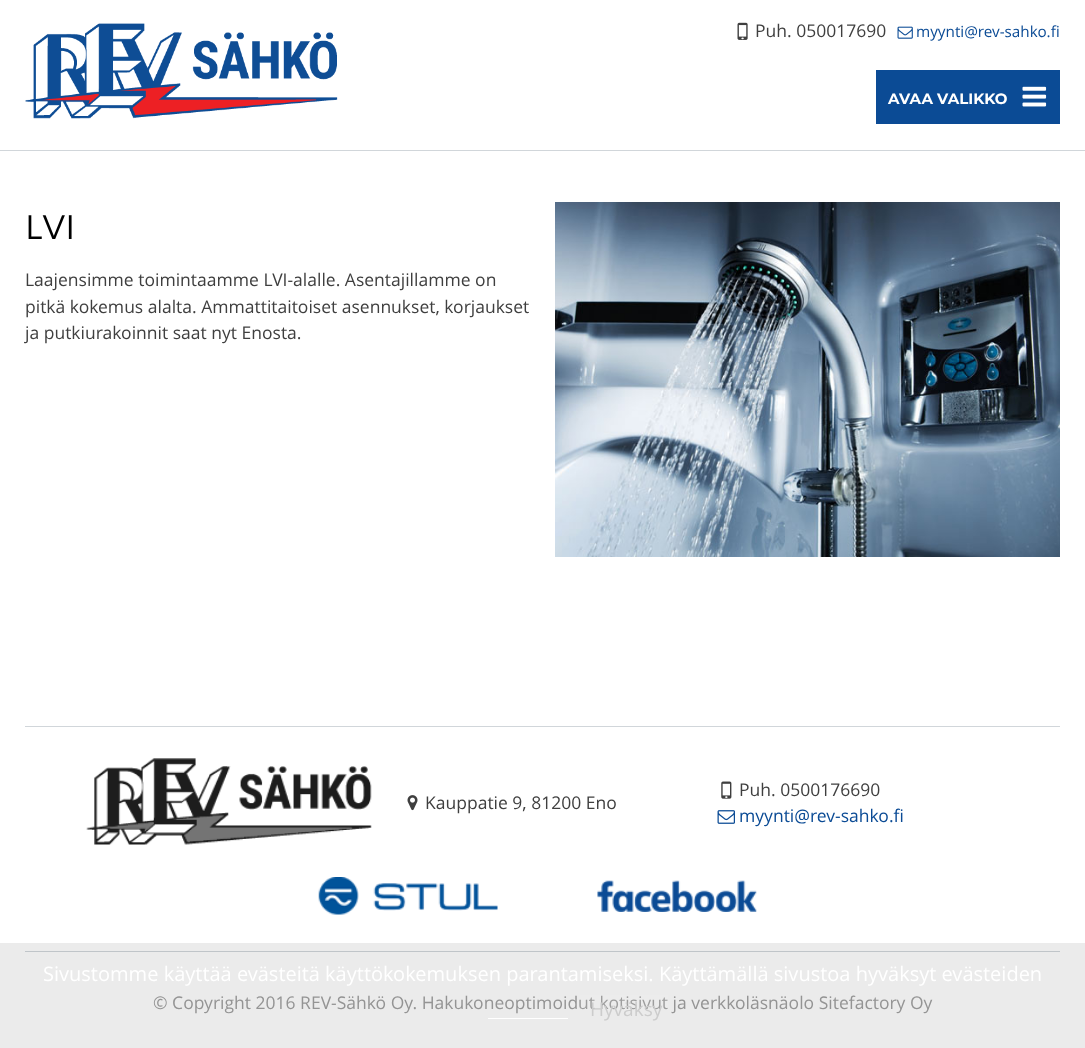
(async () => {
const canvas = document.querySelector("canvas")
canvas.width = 1085
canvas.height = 1048
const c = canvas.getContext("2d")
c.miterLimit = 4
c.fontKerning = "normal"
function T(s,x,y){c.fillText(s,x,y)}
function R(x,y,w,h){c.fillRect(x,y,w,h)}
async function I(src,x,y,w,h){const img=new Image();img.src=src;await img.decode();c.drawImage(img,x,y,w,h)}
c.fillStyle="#fff"
R(0,0,1085,1048)
c.fillStyle="#ebebeb"
R(0,943,1085,105)
c.fillStyle="#d1d6da"
R(0,150,1085,1)
await I("1.png",25,23,313,96)
await I("2.png",737,22,11,18)
c.font="17.5px Open Sans"
c.fillStyle="#3f3f3f"
T("Puh. 050017690",755,37)
await I("3.png",897,26,16,13)
c.font="15.25px Open Sans"
c.fillStyle="#0b4b95"
T("myynti@rev-sahko.fi",916,37)
R(876,70,184,54)
c.font="bold 15px Montserrat"
c.fillStyle="#fff"
T("AVAA VALIKKO",888,104)
await I("4.png",1022,86,25,21)
c.font="300 34px Montserrat"
c.fillStyle="#000"
T("LVI",25,239)
c.font="17.5px Open Sans"
c.fillStyle="#3f3f3f"
T("Laajensimme toimintaamme LVI-alalle. Asentajillamme on",25,286)
T("pitkä kokemus alalta. Ammattitaitoiset asennukset, korjaukset",25,313)
T("ja putkiurakoinnit saat nyt Enosta.",25,339)
await I("5.png",555,202,505,355)
c.fillStyle="#d1d6da"
R(25,726,1035,1)
await I("6.png",86,758,286,87)
await I("7.png",407,795,11,16)
c.fillStyle="#3f3f3f"
T("Kauppatie 9, 81200 Eno",425,809)
await I("8.png",721,781,11,18)
T("Puh. 0500176690",739,796)
await I("9.png",717,810,18,14)
c.fillStyle="#0b4b95"
T("myynti@rev-sahko.fi",739,822)
await I("10.png",318,877,180,38)
await I("11.png",597,880,160,32)
c.fillStyle="#c0c5c9"
R(25,951,1035,1)
c.fillStyle="#949494"
T("© Copyright 2016 REV-Sähkö Oy. Hakukoneoptimoidut kotisivut ja verkkoläsnäolo Sitefactory Oy",153,1009)
c.font="20px Open Sans"
c.fillStyle="#fff"
T("Sivustomme käyttää evästeitä käyttökokemuksen parantamiseksi. Käyttämällä sivustoa hyväksyt evästeiden",43,981)
R(488,1018,80,1)
c.fillStyle="#ffffff17"
R(580,995,88,15)
c.font="19px Open Sans"
c.fillStyle="#ccc"
T("Hyväksy",590,1016)
})()
